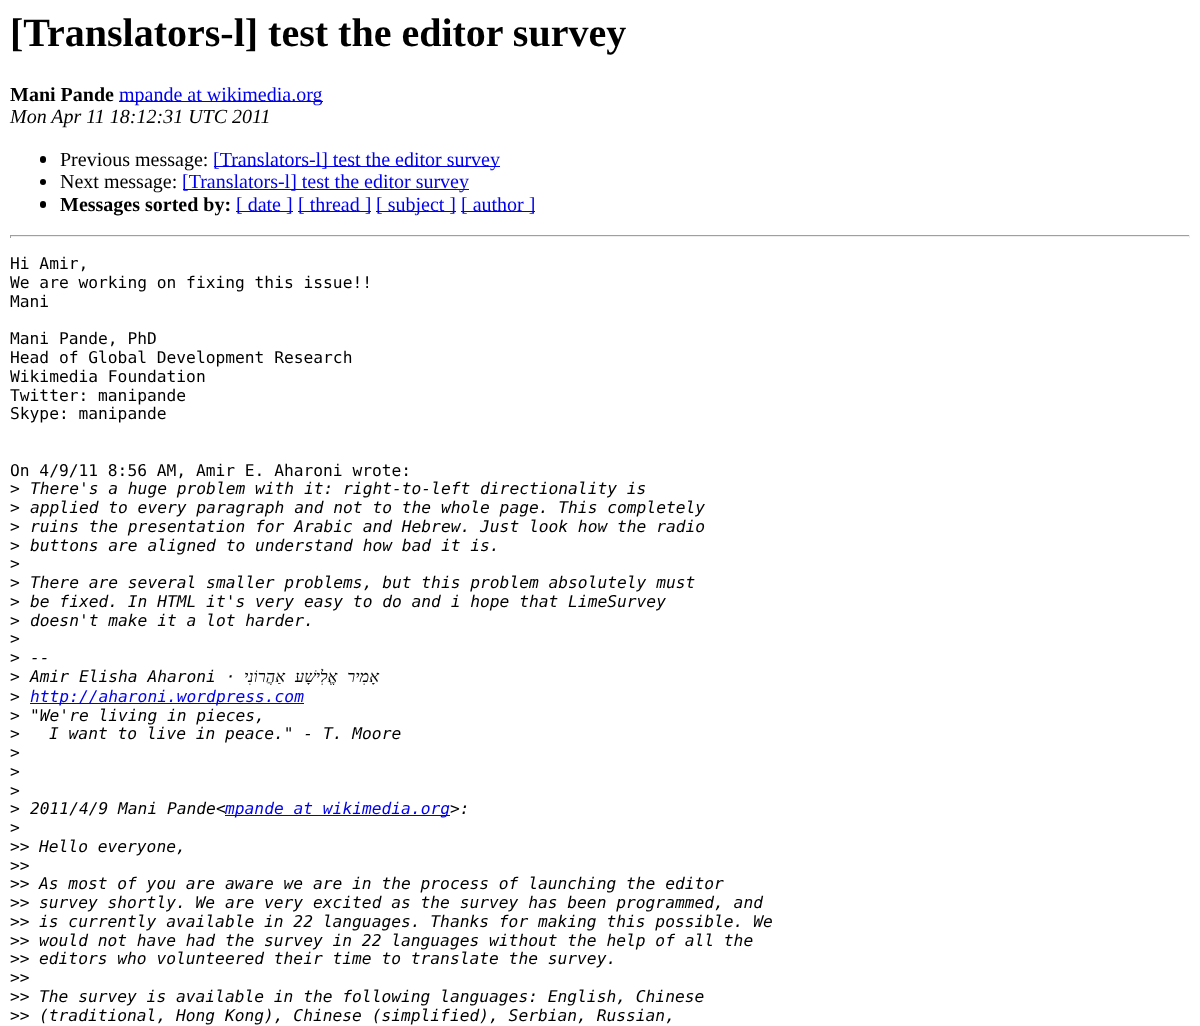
(async () => {
const canvas = document.querySelector("canvas")
canvas.width = 1200
canvas.height = 1026
const c = canvas.getContext("2d")
c.miterLimit = 4
c.fontKerning = "normal"
function T(s,x,y){c.fillText(s,x,y)}
function R(x,y,w,h){c.fillRect(x,y,w,h)}
function Q(x,y,w,h,r){c.beginPath();c.roundRect(x,y,w,h,r);c.fill()}
c.fillStyle="#fff"
R(0,0,1200,1026)
c.font="bold 40px Liberation Serif"
c.fillStyle="#000"
T("[Translators-l] test the editor survey",10,46)
c.font="bold 20px Liberation Serif"
T("Mani Pande",10,101)
c.fillStyle="#00e"
R(119,101,204,1)
c.font="20px Liberation Serif"
T("mpande at wikimedia.org",119,101)
c.font="italic 20px Liberation Serif"
c.fillStyle="#000"
T("Mon Apr 11 18:12:31 UTC 2011",10,123)
Q(40,156,6,7,3)
c.font="20px Liberation Serif"
T("Previous message:",60,166)
c.fillStyle="#00e"
R(214,166,286,1)
T("[Translators-l] test the editor survey",213,166)
c.fillStyle="#000"
c.beginPath()
c.arc(43,182,3,0,7)
c.fill()
T("Next message:",60,188)
c.fillStyle="#00e"
R(183,189,286,1)
T("[Translators-l] test the editor survey",182,188)
c.fillStyle="#000"
Q(40,201,6,7,3)
c.font="bold 20px Liberation Serif"
T("Messages sorted by:",60,211)
c.fillStyle="#00e"
R(236,211,57,1)
c.font="20px Liberation Serif"
T("[ date ]",236,211)
R(298,211,73,1)
T("[ thread ]",298,211)
R(376,211,80,1)
T("[ subject ]",376,211)
R(461,211,74,1)
T("[ author ]",461,211)
c.fillStyle="#9f9f9f"
R(10,235,1180,1)
c.fillStyle="#eee"
R(1189,235,1,3)
R(10,236,1180,1)
c.fillStyle="#9f9f9f"
R(10,235,1,3)
c.font="16.25px DejaVu Sans Mono"
c.fillStyle="#000"
T("Hi Amir,",10,269)
T("We are working on fixing this issue!!",10,288)
T("Mani",10,307)
T("Mani Pande, PhD",10,344)
T("Head of Global Development Research",10,363)
T("Wikimedia Foundation",10,382)
T("Twitter: manipande",10,401)
T("Skype: manipande",10,419)
T("On 4/9/11 8:56 AM, Amir E. Aharoni wrote:",10,476)
T(">",10,494)
c.font="italic 16.25px DejaVu Sans Mono"
T("There's a huge problem with it: right-to-left directionality is",30,494)
c.font="16.25px DejaVu Sans Mono"
T(">",10,513)
c.font="italic 16.25px DejaVu Sans Mono"
T("applied to every paragraph and not to the whole page. This completely",30,513)
c.font="16.25px DejaVu Sans Mono"
T(">",10,532)
c.font="italic 16.25px DejaVu Sans Mono"
T("ruins the presentation for Arabic and Hebrew. Just look how the radio",30,532)
c.font="16.25px DejaVu Sans Mono"
T(">",10,551)
c.font="italic 16.25px DejaVu Sans Mono"
T("buttons are aligned to understand how bad it is.",30,551)
c.font="16.25px DejaVu Sans Mono"
T(">",10,569)
T(">",10,588)
c.font="italic 16.25px DejaVu Sans Mono"
T("There are several smaller problems, but this problem absolutely must",30,588)
c.font="16.25px DejaVu Sans Mono"
T(">",10,607)
c.font="italic 16.25px DejaVu Sans Mono"
T("be fixed. In HTML it's very easy to do and i hope that LimeSurvey",30,607)
c.font="16.25px DejaVu Sans Mono"
T(">",10,626)
c.font="italic 16.25px DejaVu Sans Mono"
T("doesn't make it a lot harder.",30,626)
c.font="16.25px DejaVu Sans Mono"
T(">",10,644)
T(">",10,663)
c.font="italic 16.25px DejaVu Sans Mono"
T("--",30,663)
c.font="16.25px DejaVu Sans Mono"
T(">",10,682)
c.font="italic 16.25px DejaVu Sans Mono"
T("Amir Elisha Aharoni ·",30,682)
c.wordSpacing="6px"
c.direction="rtl"
c.font="italic 16.25px Liberation Serif"
T("אָמִיר אֱלִישָׁע אַהֲרוֹנִי",379,682)
c.wordSpacing="0px"
c.direction="ltr"
c.font="16.25px DejaVu Sans Mono"
T(">",10,702)
c.fillStyle="#00e"
R(30,703,274,1)
c.font="italic 16.25px DejaVu Sans Mono"
T("http://aharoni.wordpress.com",30,702)
c.font="16.25px DejaVu Sans Mono"
c.fillStyle="#000"
T(">",10,721)
c.font="italic 16.25px DejaVu Sans Mono"
T("\"We're living in pieces,",30,721)
c.font="16.25px DejaVu Sans Mono"
T(">",10,739)
c.font="italic 16.25px DejaVu Sans Mono"
T("I want to live in peace.\" - T. Moore",49,739)
c.font="16.25px DejaVu Sans Mono"
T(">",10,758)
T(">",10,777)
T(">",10,796)
T(">",10,814)
c.font="italic 16.25px DejaVu Sans Mono"
T("2011/4/9 Mani Pande<",30,814)
c.fillStyle="#00e"
R(225,815,225,1)
T("mpande at wikimedia.org",225,814)
c.fillStyle="#000"
T(">:",450,814)
c.font="16.25px DejaVu Sans Mono"
T(">",10,833)
T(">>",10,852)
c.font="italic 16.25px DejaVu Sans Mono"
T("Hello everyone,",39,852)
c.font="16.25px DejaVu Sans Mono"
T(">>",10,871)
T(">>",10,889)
c.font="italic 16.25px DejaVu Sans Mono"
T("As most of you are aware we are in the process of launching the editor",39,889)
c.font="16.25px DejaVu Sans Mono"
T(">>",10,908)
c.font="italic 16.25px DejaVu Sans Mono"
T("survey shortly. We are very excited as the survey has been programmed, and",39,908)
c.font="16.25px DejaVu Sans Mono"
T(">>",10,927)
c.font="italic 16.25px DejaVu Sans Mono"
T("is currently available in 22 languages. Thanks for making this possible. We",39,927)
c.font="16.25px DejaVu Sans Mono"
T(">>",10,946)
c.font="italic 16.25px DejaVu Sans Mono"
T("would not have had the survey in 22 languages without the help of all the",39,946)
c.font="16.25px DejaVu Sans Mono"
T(">>",10,964)
c.font="italic 16.25px DejaVu Sans Mono"
T("editors who volunteered their time to translate the survey.",39,964)
c.font="16.25px DejaVu Sans Mono"
T(">>",10,983)
T(">>",10,1002)
c.font="italic 16.25px DejaVu Sans Mono"
T("The survey is available in the following languages: English, Chinese",39,1002)
c.font="16.25px DejaVu Sans Mono"
T(">>",10,1021)
c.font="italic 16.25px DejaVu Sans Mono"
T("(traditional, Hong Kong), Chinese (simplified), Serbian, Russian,",39,1021)
})()
